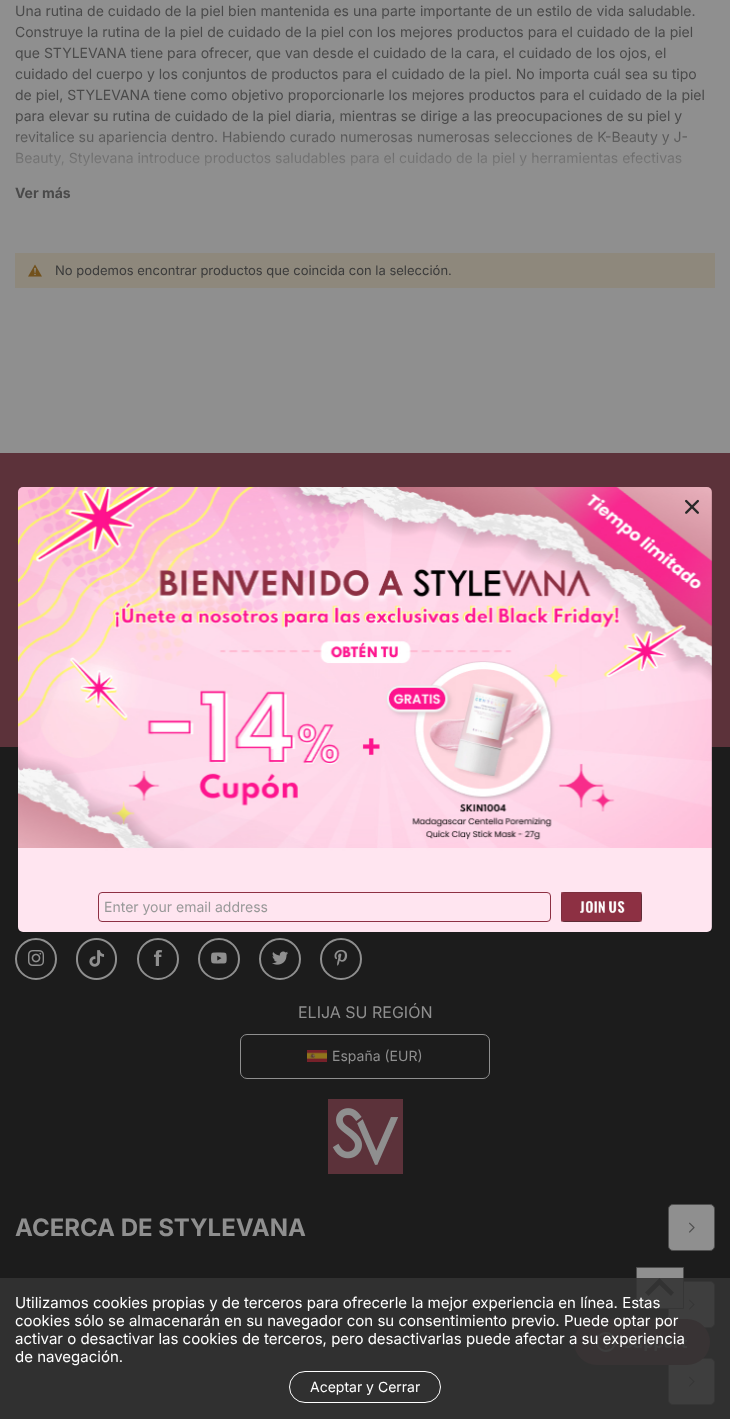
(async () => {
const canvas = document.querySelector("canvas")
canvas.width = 730
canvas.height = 1419
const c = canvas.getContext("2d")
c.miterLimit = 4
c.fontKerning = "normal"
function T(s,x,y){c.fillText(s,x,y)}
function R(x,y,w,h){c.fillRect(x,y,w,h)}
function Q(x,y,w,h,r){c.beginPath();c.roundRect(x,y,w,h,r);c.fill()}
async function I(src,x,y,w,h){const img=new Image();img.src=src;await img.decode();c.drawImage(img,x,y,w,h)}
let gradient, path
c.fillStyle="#8f8f8f"
R(0,0,730,1419)
c.font="14px Inter"
c.fillStyle="#4a4a4a"
T("Una rutina de cuidado de la piel bien mantenida es una parte importante de un estilo de vida saludable.",15,16)
T("Construye la rutina de la piel de cuidado de la piel con los mejores productos para el cuidado de la piel",15,37)
T("que STYLEVANA tiene para ofrecer, que van desde el cuidado de la cara, el cuidado de los ojos, el",15,58)
T("cuidado del cuerpo y los conjuntos de productos para el cuidado de la piel. No importa cuál sea su tipo",15,79)
T("de piel, STYLEVANA tiene como objetivo proporcionarle los mejores productos para el cuidado de la piel",15,100)
T("para elevar su rutina de cuidado de la piel diaria, mientras se dirige a las preocupaciones de su piel y",15,121)
T("revitalice su apariencia dentro. Habiendo curado numerosas numerosas selecciones de K-Beauty y J-",15,142)
T("Beauty, Stylevana introduce productos saludables para el cuidado de la piel y herramientas efectivas",15,163)
gradient = c.createLinearGradient(365,123,365,185)
gradient.addColorStop(0,"#8f8f8f00")
gradient.addColorStop(1,"#8f8f8f")
c.fillStyle = gradient
R(16,131,671,35)
c.font="bold 14px Inter"
c.fillStyle="#4a4a4a"
T("Ver más",15,198)
c.fillStyle="#8e887c"
R(15,253,700,35)
await I("1.png",28,264,14,13)
c.font="13px Inter"
c.fillStyle="#3b3b3b"
T("No podemos encontrar productos que coincida con la selección.",55,275)
c.fillStyle="#5c323a"
R(0,453,730,294)
c.fillStyle="#1c1c1c"
R(0,747,730,672)
c.beginPath()
c.arc(36,959,20,0,7)
c.strokeStyle="#8f8f8f"
c.lineWidth=2
c.stroke()
await I("6.png",76,938,41,42)
c.beginPath()
c.arc(158,959,20,0,7)
c.stroke()
c.beginPath()
c.arc(219,959,20,0,7)
c.stroke()
c.beginPath()
c.arc(280,959,20,0,7)
c.stroke()
c.beginPath()
c.arc(341,959,20,0,7)
c.stroke()
c.save()
c.beginPath()
c.rect(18,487,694,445)
c.clip()
c.fillStyle="#00000029"
c.filter="blur(3px)"
c.beginPath()
c.roundRect(18,490,694,445,5)
c.fill()
c.filter="none"
c.restore()
await I("3.png",18,487,694,445)
await I("2.png",685,499,14,15)
c.beginPath()
c.roundRect(98.5,892.5,452,29,3.5)
c.strokeStyle="#8d3043"
c.lineWidth=1
c.stroke()
c.font="14px Inter"
c.fillStyle="#999"
T("Enter your email address",104,912)
c.fillStyle="#282828"
Q(561,892,81,30,4)
await I("4.png",561,892,81,30)
await I("5.png",28,950,16,16)
await I("7.png",154,950,9,16)
await I("8.png",211,952,16,12)
await I("9.png",272,951,16,14)
await I("10.png",334,949,14,17)
c.font="16px Inter"
c.fillStyle="#8f8f8f"
T("ELIJA SU REGIÓN",298,1018)
c.beginPath()
c.roundRect(240.5,1034.5,249,44,6.5)
c.strokeStyle="#8f8f8f"
c.stroke()
await I("11.png",307,1050,20,12)
c.font="14px Inter"
T("España (EUR)",332,1061)
await I("12.png",328,1099,75,75)
c.font="bold 24px Inter"
T("ACERCA DE STYLEVANA",15,1236)
c.beginPath()
c.roundRect(668.5,1204.5,46,46,4.5)
c.fill()
c.strokeStyle="#4e4e4e"
c.stroke()
await I("13.png",689,1222,6,11)
c.beginPath()
c.roundRect(668.5,1281.5,46,46,4.5)
c.fill()
c.stroke()
await I("13.png",689,1299,6,11)
c.beginPath()
c.roundRect(668.5,1358.5,46,46,4.5)
c.fill()
c.stroke()
await I("13.png",689,1376,6,11)
c.beginPath()
c.rect(636.5,1267.5,47,41)
c.fill()
c.stroke()
c.fillStyle="#2e2e2e"
path = new Path2D("M671 1296l-11.5-11l-11 11l-3.5-3.5l14.5-14.5l14.5 14.5z")
c.fill(path)
await I("14.png",574,1319,136,46)
c.fillStyle="#333333e0"
R(0,1278,730,141)
c.font="15px Inter"
c.fillStyle="#fff"
T("Utilizamos cookies propias y de terceros para ofrecerle la mejor experiencia en línea. Estas",15,1308)
T("cookies sólo se almacenarán en su navegador con su consentimiento previo. Puede optar por",15,1326)
T("activar o desactivar las cookies de terceros, pero desactivarlas puede afectar a su experiencia",15,1344)
T("de navegación.",15,1362)
c.beginPath()
c.roundRect(289.5,1371.5,151,31,15.5)
c.strokeStyle="#fff"
c.stroke()
c.font="14px Inter"
T("Aceptar y Cerrar",310,1392)
})()
